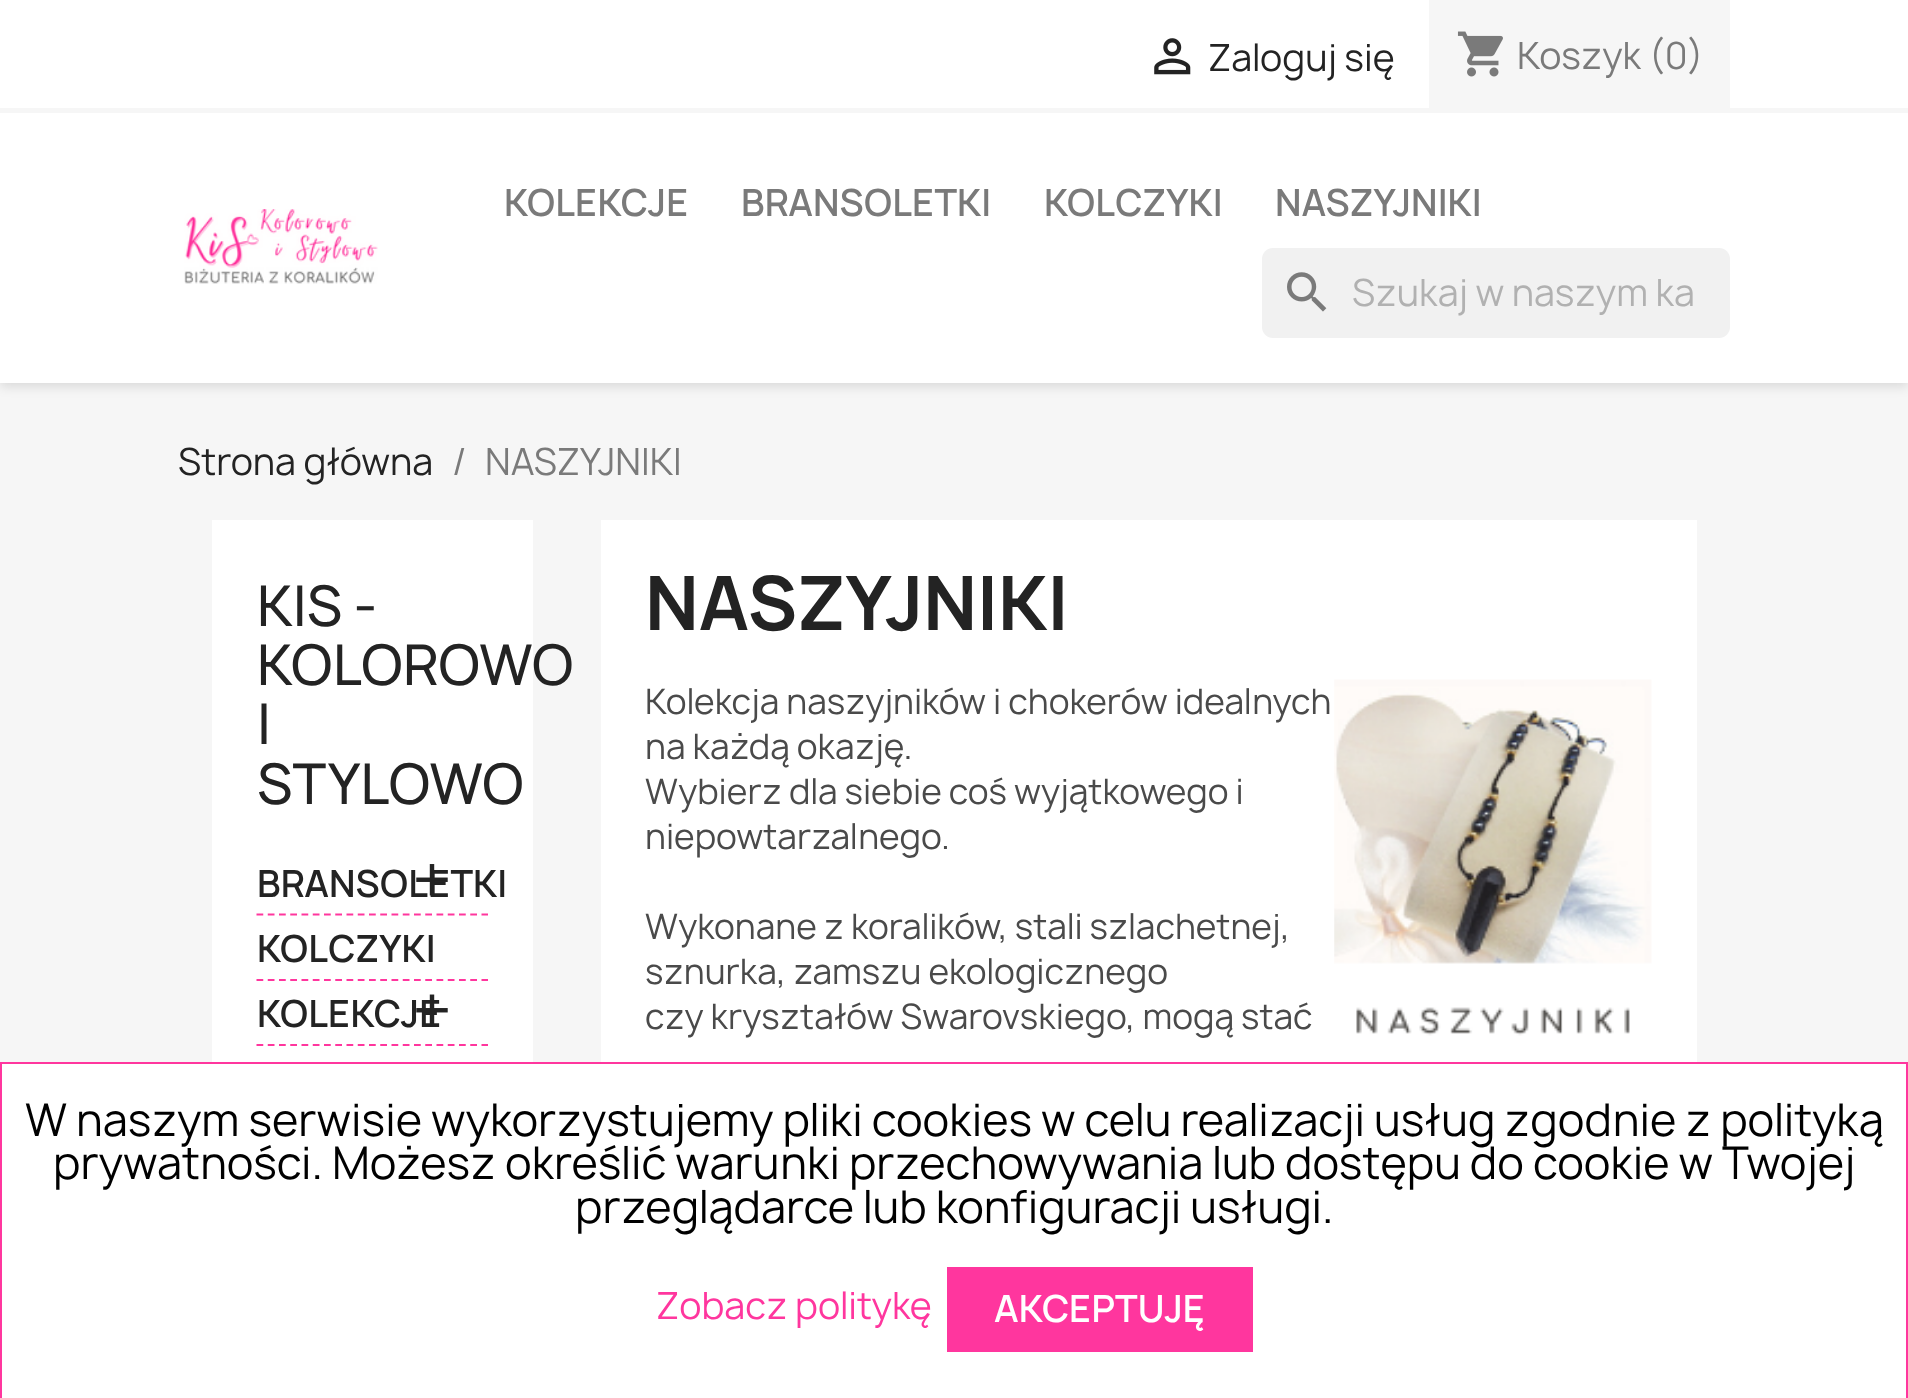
(async () => {
const canvas = document.querySelector("canvas")
canvas.width = 1908
canvas.height = 1398
const c = canvas.getContext("2d")
c.miterLimit = 4
c.fontKerning = "normal"
function T(s,x,y){c.fillText(s,x,y)}
function R(x,y,w,h){c.fillRect(x,y,w,h)}
function Q(x,y,w,h,r){c.beginPath();c.roundRect(x,y,w,h,r);c.fill()}
async function I(src,x,y,w,h){const img=new Image();img.src=src;await img.decode();c.drawImage(img,x,y,w,h)}
let path
c.fillStyle="#f6f6f6"
R(0,0,1908,1398)
c.fillStyle="#0000001c"
c.filter="blur(5.5px)"
c.beginPath()
c.rect(0,5,1908,382)
c.fill()
c.filter="none"
c.fillStyle="#fff"
R(0,0,1908,383)
c.fillStyle="#f6f6f6"
R(0,108,1908,5)
await I("1.png",1154,38,37,37)
c.font="36px Manrope"
c.fillStyle="#232323"
T("Zaloguj się",1208,71)
c.fillStyle="#f6f6f6"
R(1429,0,301,108)
await I("2.png",1457,31,46,46)
c.fillStyle="#7a7a7a"
T("Koszyk (0)",1517,69)
await I("3.png",184,209,194,75)
c.font="600 36px Manrope"
T("KOLEKCJE",504,216)
T("BRANSOLETKI",741,216)
T("KOLCZYKI",1044,216)
T("NASZYJNIKI",1275,216)
c.fillStyle="#f1f1f1"
Q(1262,248,468,90,11)
await I("4.png",1287,272,40,40)
c.font="36px Manrope"
c.fillStyle="#b1b1b1"
T("Szukaj w naszym ka",1352,306)
c.fillStyle="#232323"
T("Strona główna",178,475)
c.fillStyle="#7a7a7a"
T("/",452,475)
T("NASZYJNIKI",485,475)
c.fillStyle="#fff"
R(212,520,321,542)
c.font="500 54px Manrope"
c.fillStyle="#232323"
T("KIS -",257,626)
T("KOLOROWO",257,685)
T("I",257,744)
T("STYLOWO",257,804)
path = new Path2D("M256.5 914.5h231.5")
c.strokeStyle="#ff369e"
c.lineWidth=2.2
c.setLineDash([6.75,4.5])
c.stroke(path)
c.font="600 36px Manrope"
T("BRANSOLETKI",257,897)
await I("5.png",416,864,32,32)
path = new Path2D("M256.5 980h231.5")
c.stroke(path)
T("KOLCZYKI",257,962)
path = new Path2D("M256.5 1045h231.5")
c.stroke(path)
T("KOLEKCJE",257,1027)
await I("6.png",416,994,32,30)
c.fillStyle="#fff"
R(601,520,1096,542)
c.font="bold 72px Manrope"
c.fillStyle="#232323"
T("NASZYJNIKI",645,630)
c.font="33.75px Manrope"
c.fillStyle="#4a4a4a"
T("Kolekcja naszyjników i chokerów idealnych",645,714)
T("na każdą okazję.",645,759)
T("Wybierz dla siebie coś wyjątkowego i",645,804)
T("niepowtarzalnego.",645,849)
T("Wykonane z koralików, stali szlachetnej,",645,939)
T("sznurka, zamszu ekologicznego",645,984)
T("czy kryształów Swarovskiego, mogą stać",645,1029)
await I("7.png",1334,679,318,357)
c.fillStyle="#fff"
c.beginPath()
c.rect(1,1063,1906,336)
c.fill()
c.lineWidth=2
c.setLineDash([])
c.stroke()
c.font="43.2px Manrope"
c.fillStyle="#000"
T("W naszym serwisie wykorzystujemy pliki cookies w celu realizacji usług zgodnie z polityką",25,1136)
T("prywatności. Możesz określić warunki przechowywania lub dostępu do cookie w Twojej",53,1179)
T("przeglądarce lub konfiguracji usługi.",575,1223)
c.font="36px Manrope"
c.fillStyle="#ff369e"
T("Zobacz politykę",656,1319)
R(947,1267,306,85)
c.font="600 36px Manrope"
c.fillStyle="#fff"
T("AKCEPTUJĘ",994,1322)
})()
